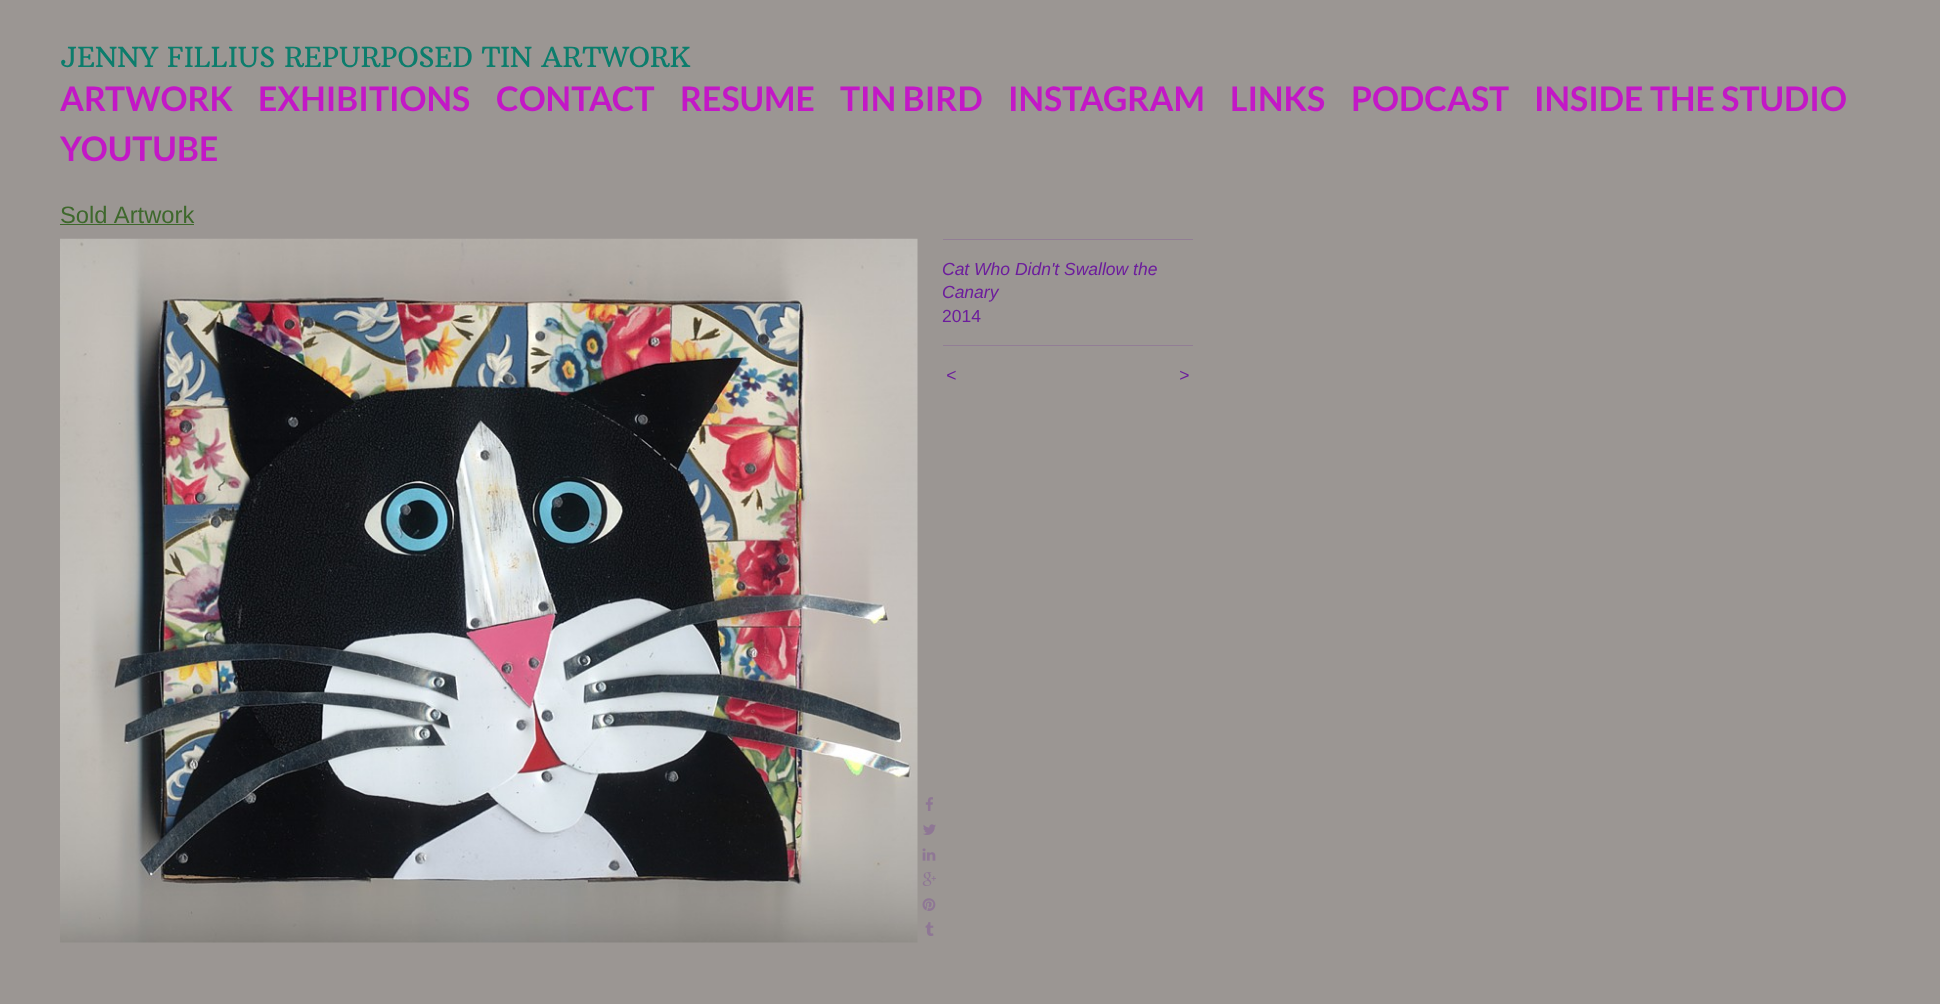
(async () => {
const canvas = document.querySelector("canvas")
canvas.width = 1940
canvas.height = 1004
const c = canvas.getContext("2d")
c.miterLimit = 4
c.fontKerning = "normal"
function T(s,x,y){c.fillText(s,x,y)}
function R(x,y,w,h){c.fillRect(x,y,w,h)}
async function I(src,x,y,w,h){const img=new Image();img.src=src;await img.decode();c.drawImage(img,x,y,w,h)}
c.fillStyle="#9b9693"
R(0,0,1940,1004)
c.font="27.5px Arbutus Slab"
c.fillStyle="#0c7d6c"
T("JENNY FILLIUS REPURPOSED TIN ARTWORK",60,67)
c.font="bold 33.75px Lato"
c.fillStyle="#c318c6"
T("ARTWORK",60,111)
T("EXHIBITIONS",258,111)
T("CONTACT",496,111)
T("RESUME",680,111)
T("TIN BIRD",840,111)
T("INSTAGRAM",1008,111)
T("LINKS",1230,111)
T("PODCAST",1351,111)
T("INSIDE THE STUDIO",1534,111)
T("YOUTUBE",60,161)
c.wordSpacing="1px"
c.font="23.75px Liberation Sans"
c.fillStyle="#3e682c"
T("Sold Artwork",60,223)
R(60,224,134,1)
await I("1.png",60,238,858,705)
await I("2.png",925,797,8,14)
await I("3.png",923,824,13,11)
await I("4.png",922,848,14,13)
await I("5.png",922,872,14,14)
await I("6.png",922,898,14,13)
await I("7.png",925,922,9,14)
c.fillStyle="#927e95"
R(943,239,250,1)
c.wordSpacing="0px"
c.font="italic 17.5px Liberation Sans"
c.fillStyle="#6c1d9c"
T("Cat Who Didn't Swallow the",942,275)
T("Canary",942,298)
c.font="17.5px Liberation Sans"
T("2014",942,322)
c.fillStyle="#927e95"
R(943,345,250,1)
c.letterSpacing="1px"
c.font="italic 17.5px Liberation Sans"
c.fillStyle="#6c1d9c"
T("<",946,381)
T(">",1179,381)
})()
